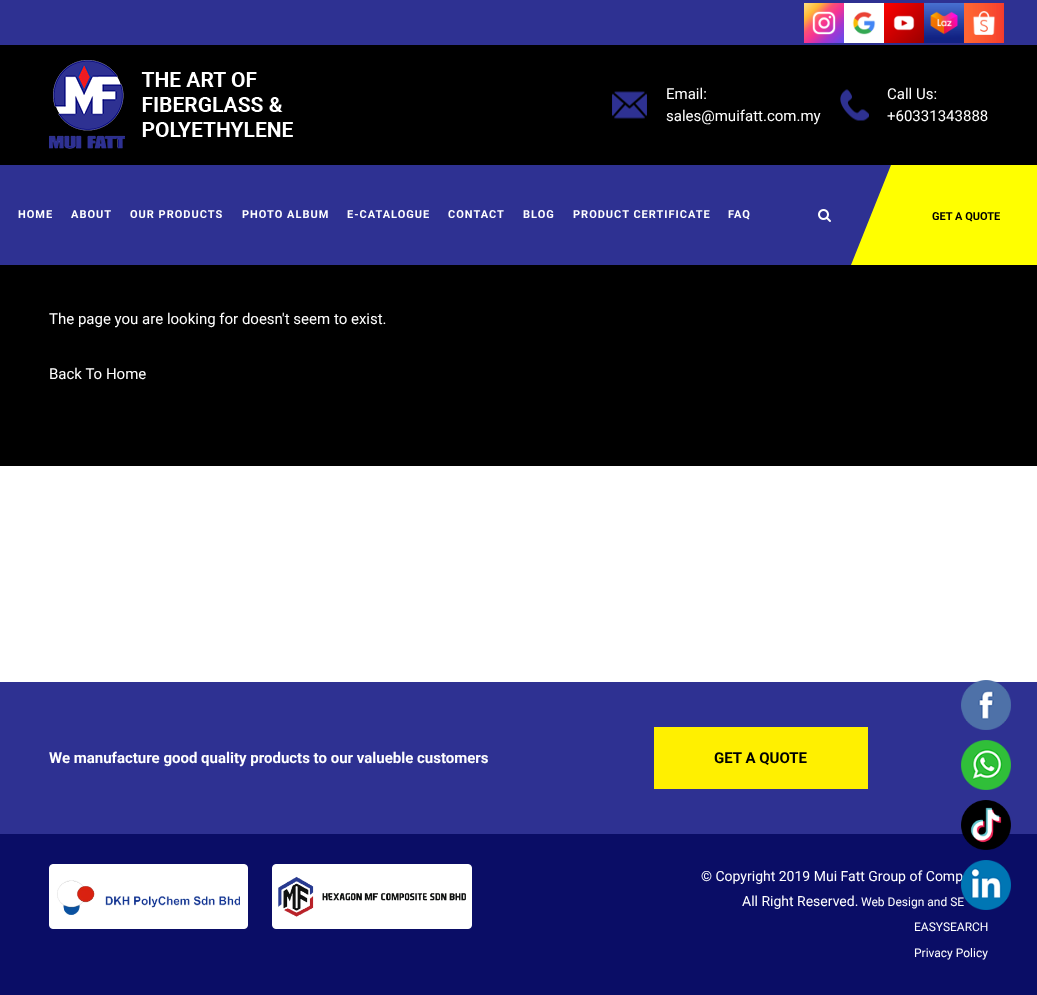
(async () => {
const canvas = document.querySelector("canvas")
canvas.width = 1037
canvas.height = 995
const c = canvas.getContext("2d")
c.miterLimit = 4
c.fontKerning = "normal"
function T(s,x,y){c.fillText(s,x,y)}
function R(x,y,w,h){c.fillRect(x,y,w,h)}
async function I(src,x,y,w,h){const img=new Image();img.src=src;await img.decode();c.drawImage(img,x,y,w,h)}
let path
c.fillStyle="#fff"
R(0,0,1037,995)
c.fillStyle="#2e3192"
R(0,0,1037,45)
await I("1.png",804,3,40,40)
await I("2.png",844,3,40,40)
await I("3.png",884,3,40,40)
await I("4.png",924,3,40,40)
await I("5.png",964,3,40,40)
c.fillStyle="#000"
R(0,45,1037,120)
await I("6.png",49,60,244,89)
await I("7.png",612,91,35,28)
c.font="15px Roboto"
c.fillStyle="#fff"
T("Email:",666,99)
T("sales@muifatt.com.my",666,121)
await I("8.png",840,89,29,32)
T("Call Us:",887,99)
T("+60331343888",887,121)
c.fillStyle="#2e3192"
R(0,165,891,100)
c.letterSpacing="1px"
c.font="bold 11px Roboto"
c.fillStyle="#fff"
T("HOME",18,218)
T("ABOUT",71,218)
T("OUR PRODUCTS",130,218)
T("PHOTO ALBUM",242,218)
T("E-CATALOGUE",347,218)
T("CONTACT",448,218)
T("BLOG",523,218)
T("PRODUCT CERTIFICATE",573,218)
T("FAQ",728,218)
await I("9.png",818,209,13,13)
c.fillStyle="#ff0"
R(891,165,146,100)
path = new Path2D("M891 265h-40l40-100z")
c.fill(path)
c.letterSpacing="0px"
c.fillStyle="#000"
T("GET A QUOTE",932,220)
R(0,265,1037,201)
c.font="15px Roboto"
c.fillStyle="#fff"
T("The page you are looking for doesn't seem to exist.",49,324)
T("Back To Home",49,379)
c.fillStyle="#2e3192"
R(0,682,1037,152)
c.font="bold 15px Roboto"
c.fillStyle="#fff"
T("We manufacture good quality products to our valueble customers",49,763)
c.fillStyle="#fff000"
R(654,727,214,62)
c.fillStyle="#000"
T("GET A QUOTE",714,763)
c.fillStyle="#0a0d66"
R(0,834,1037,161)
await I("10.png",49,864,199,65)
await I("11.png",272,864,200,65)
c.font="14px Roboto"
c.fillStyle="#fff"
T("© Copyright 2019 Mui Fatt Group of Comp",701,881)
T("All Right Reserved.",742,906)
c.font="12px Roboto"
T("Web Design and SE",861,906)
T("EASYSEARCH",914,931)
T("Privacy Policy",914,957)
await I("12.png",961,680,50,50)
await I("13.png",961,740,50,50)
await I("14.png",961,800,50,50)
await I("15.png",961,860,50,50)
})()
